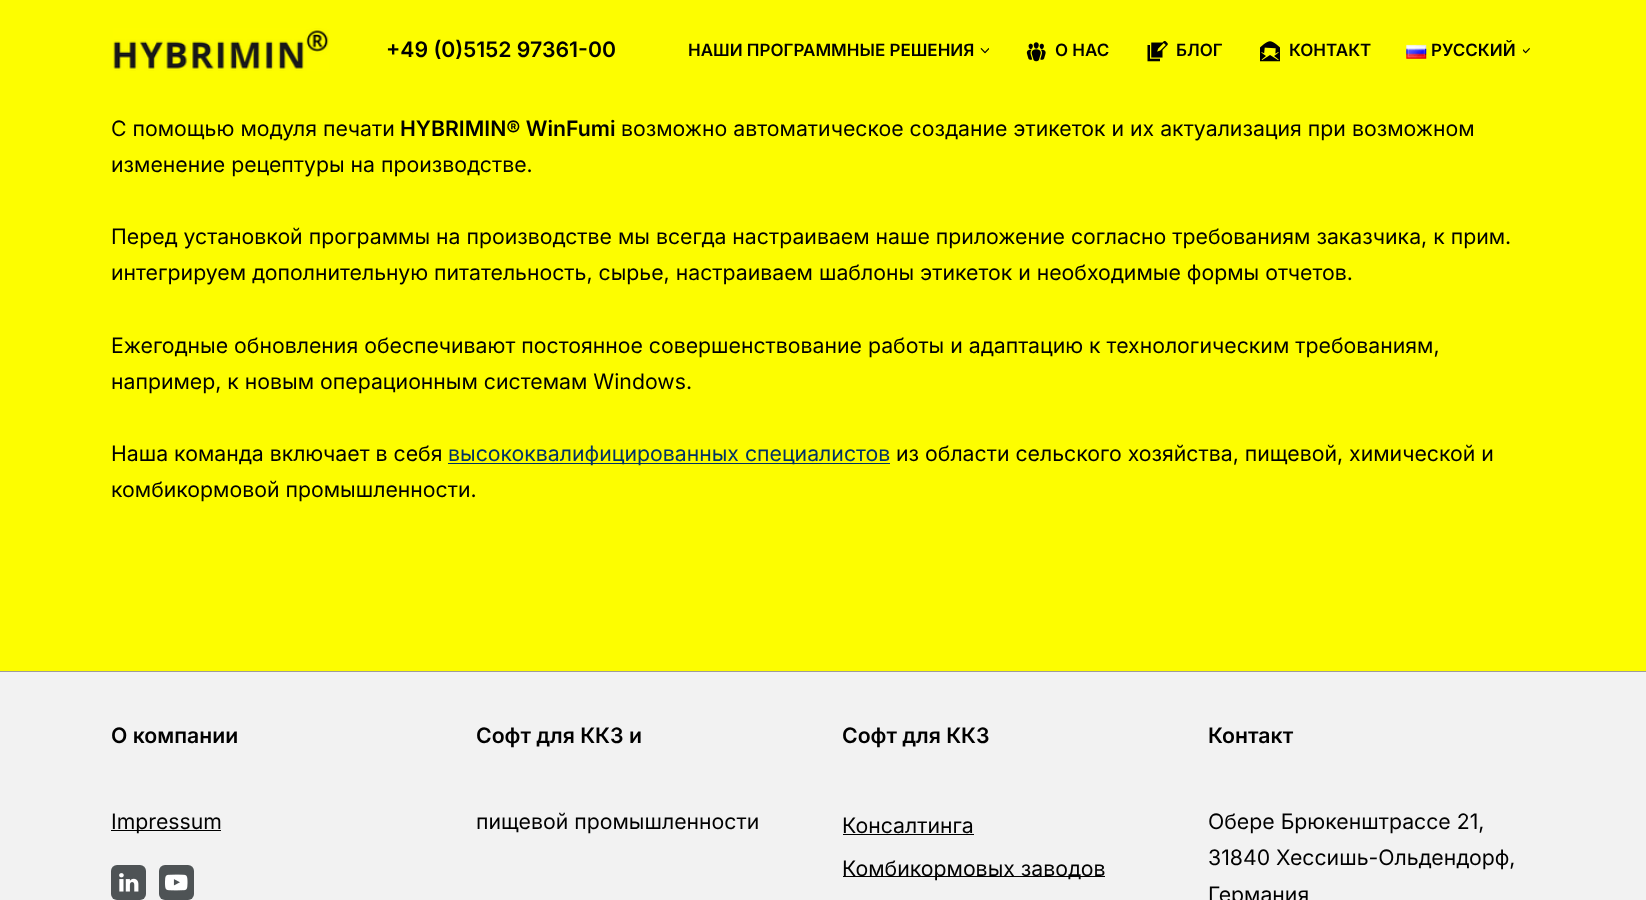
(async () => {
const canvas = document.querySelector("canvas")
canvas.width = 1646
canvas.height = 900
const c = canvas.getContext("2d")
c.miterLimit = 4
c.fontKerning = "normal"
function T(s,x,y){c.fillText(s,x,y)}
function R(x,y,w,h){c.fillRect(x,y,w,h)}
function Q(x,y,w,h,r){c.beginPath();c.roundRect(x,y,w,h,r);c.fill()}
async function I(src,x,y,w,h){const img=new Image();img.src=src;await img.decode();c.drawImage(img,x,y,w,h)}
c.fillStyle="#fdfd00"
R(0,0,1646,900)
await I("1.png",113,28,216,43)
c.font="600 21.25px Inter"
c.fillStyle="#000"
T("+49 (0)5152 97361-00",386,57)
c.font="600 17px Inter"
T("НАШИ ПРОГРАММНЫЕ РЕШЕНИЯ",688,56)
await I("2.png",980,48,9,6)
await I("3.png",1026,42,20,20)
T("O НАС",1055,56)
await I("4.png",1147,40,21,22)
T("БЛОГ",1176,56)
await I("5.png",1260,41,20,21)
T("КОНТАКТ",1289,56)
await I("6.png",1406,44,21,15)
T("РУССКИЙ",1431,56)
await I("7.png",1523,48,7,6)
c.font="21.25px Inter"
T("С помощью модуля печати",111,136)
c.font="600 21.25px Inter"
T("HYBRIMIN® WinFumi",400,136)
c.font="21.25px Inter"
T("возможно автоматическое создание этикеток и их актуализация при возможном",621,136)
T("изменение рецептуры на производстве.",111,172)
T("Перед установкой программы на производстве мы всегда настраиваем наше приложение согласно требованиям заказчика, к прим.",111,244)
T("интегрируем дополнительную питательность, сырье, настраиваем шаблоны этикеток и необходимые формы отчетов.",111,280)
T("Ежегодные обновления обеспечивают постоянное совершенствование работы и адаптацию к технологическим требованиям,",111,353)
T("например, к новым операционным системам Windows.",111,389)
T("Наша команда включает в себя",111,461)
c.fillStyle="#036"
R(448,463,442,1)
T("высококвалифицированных специалистов",448,461)
c.fillStyle="#000"
T("из области сельского хозяйства, пищевой, химической и",896,461)
T("комбикормовой промышленности.",111,497)
c.fillStyle="#f2f2f2"
R(0,672,1646,228)
c.fillStyle="#9f9b9b"
R(0,671,1646,1)
c.font="600 21.25px Inter"
c.fillStyle="#000"
T("О компании",111,743)
R(111,830,110,1)
c.font="21.25px Inter"
T("Impressum",111,829)
c.fillStyle="#4e5355"
Q(111,865,35,35,6)
await I("8.png",119,873,20,19)
Q(159,865,35,35,6)
await I("9.png",165,874,23,17)
c.font="600 21.25px Inter"
c.fillStyle="#000"
T("Софт для ККЗ и",476,743)
c.font="21.25px Inter"
T("пищевой промышленности",476,829)
c.font="600 21.25px Inter"
T("Софт для ККЗ",842,743)
c.font="21.25px Inter"
T("Консалтинга",842,833)
R(843,834,131,1)
R(843,876,262,1)
T("Комбикормовых заводов",842,876)
c.font="600 21.25px Inter"
T("Контакт",1208,743)
c.font="21.25px Inter"
T("Обере Брюкенштрассе 21,",1208,829)
T("31840 Хессишь-Ольдендорф,",1208,865)
T("Германия",1208,902)
})()
